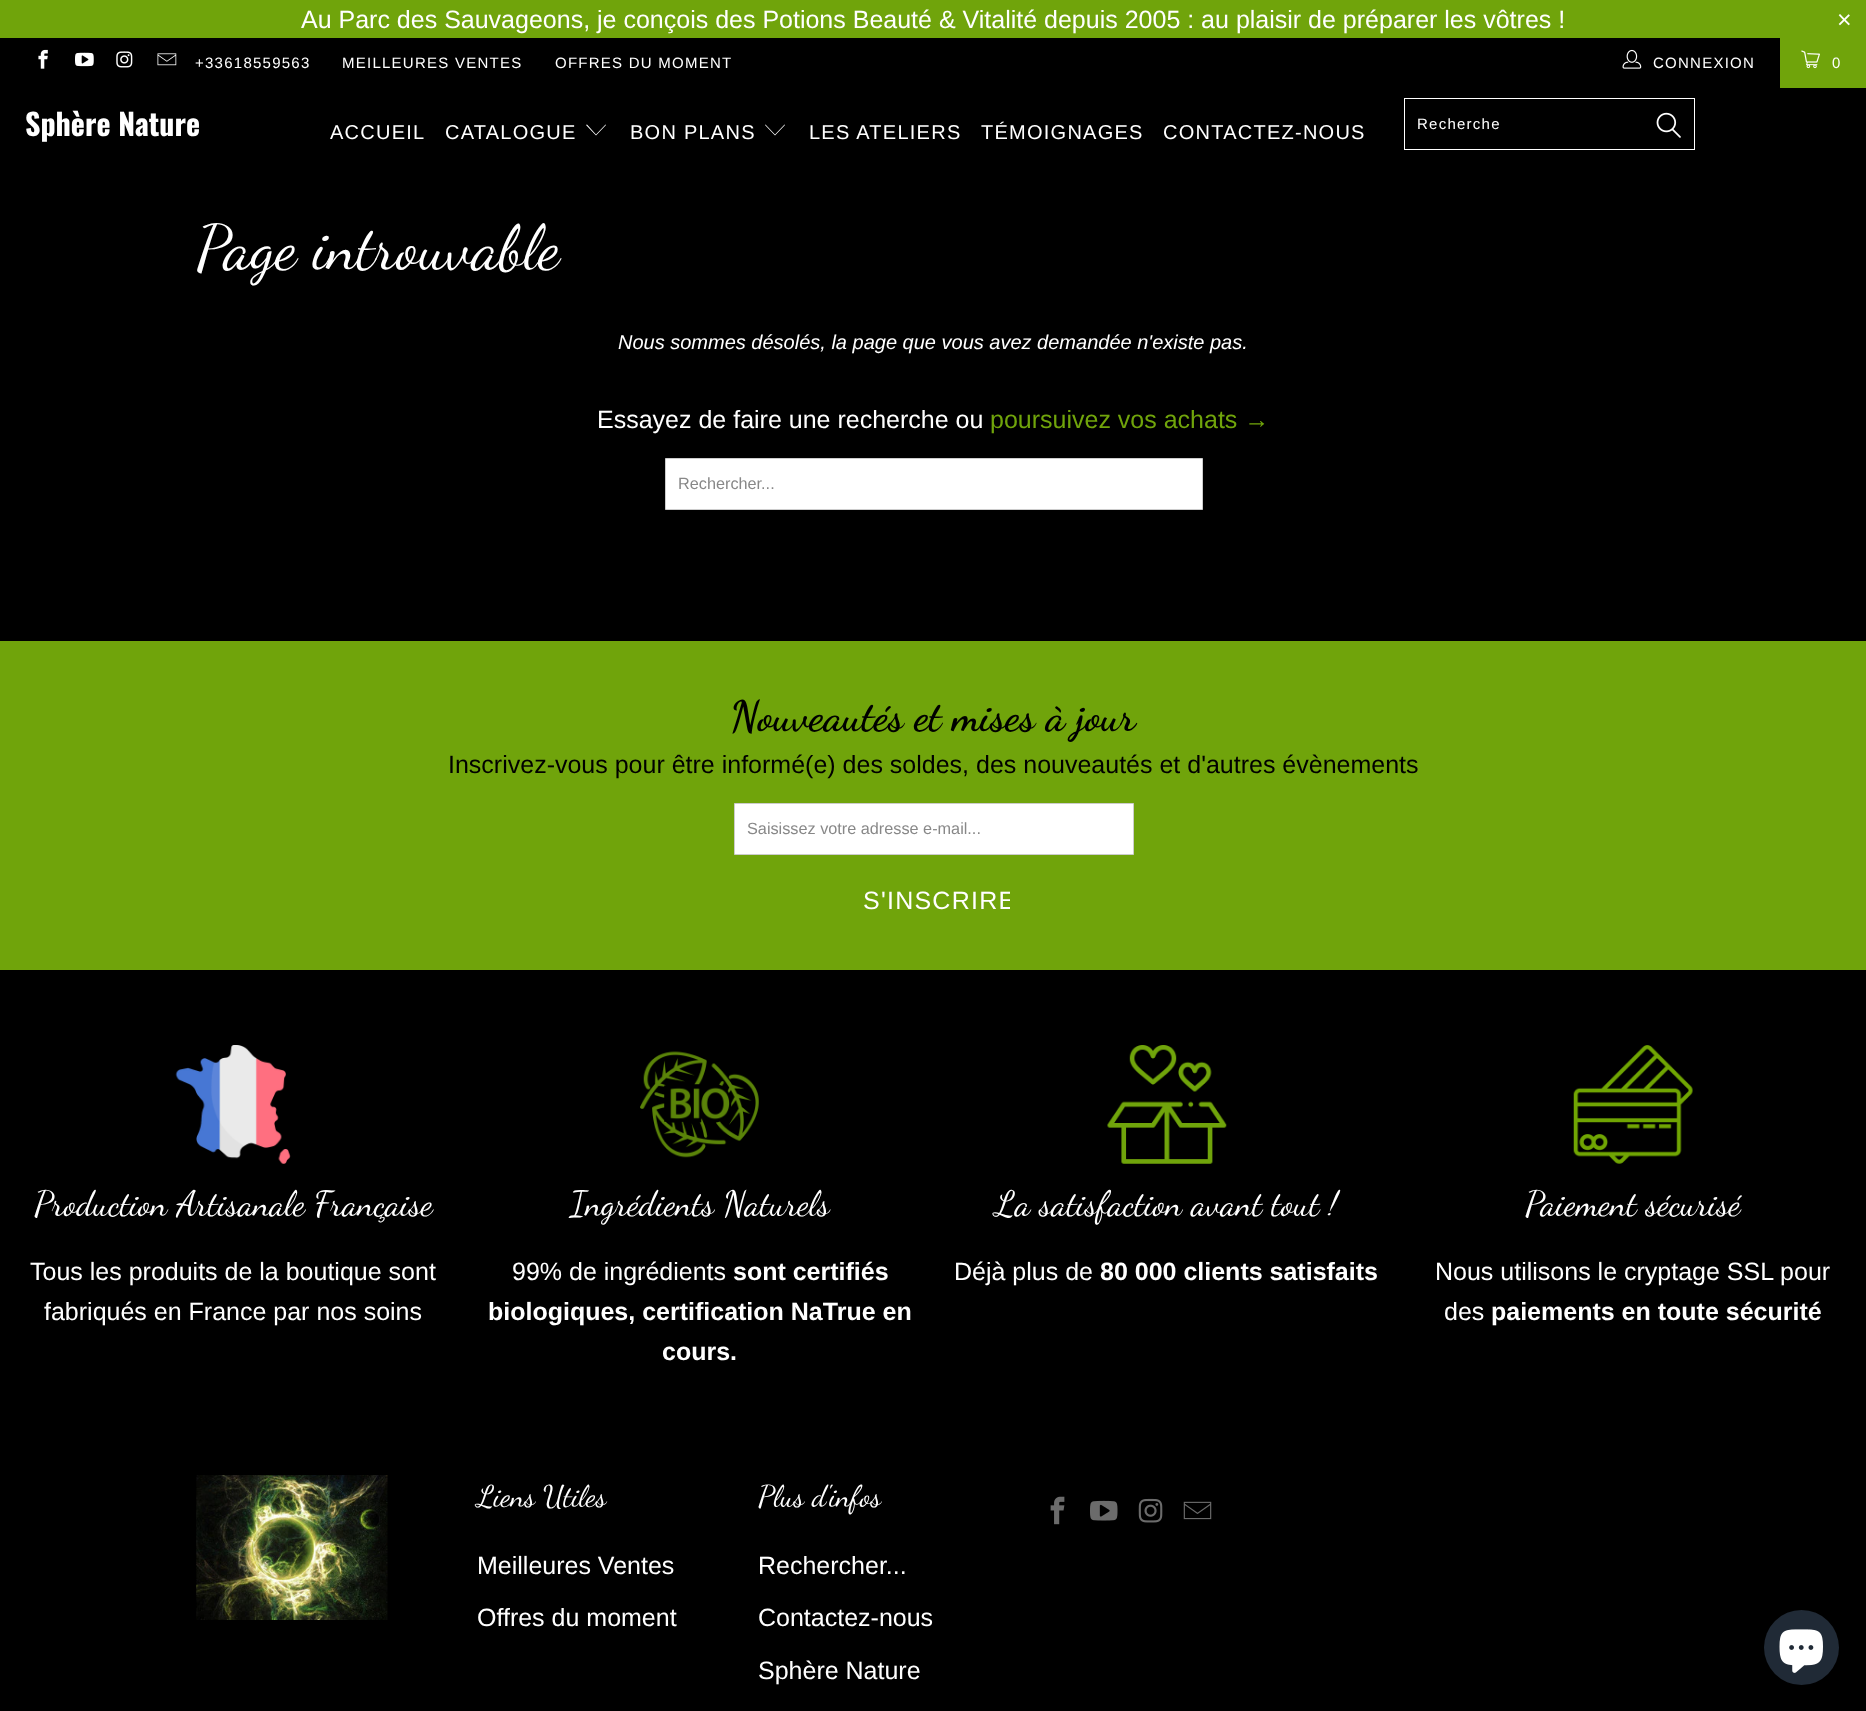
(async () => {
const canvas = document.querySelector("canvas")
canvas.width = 1866
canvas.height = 1711
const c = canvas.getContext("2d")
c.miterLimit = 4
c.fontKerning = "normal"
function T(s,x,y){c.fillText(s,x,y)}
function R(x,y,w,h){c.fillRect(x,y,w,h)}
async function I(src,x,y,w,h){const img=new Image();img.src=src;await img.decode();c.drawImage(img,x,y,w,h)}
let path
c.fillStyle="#000"
R(0,0,1866,1711)
c.fillStyle="#70a40b"
R(0,0,1866,38)
c.font="25px Liberation Sans"
c.fillStyle="#fff"
T("Au Parc des Sauvageons, je conçois des Potions Beauté & Vitalité depuis 2005 : au plaisir de préparer les vôtres !",301,28)
T("×",1837,28)
await I("1.png",38,49,10,20)
await I("2.png",75,52,19,15)
await I("3.png",116,51,17,17)
await I("4.png",157,53,20,13)
c.letterSpacing="1.25px"
c.font="15px Liberation Sans"
T("+33618559563",195,68)
T("MEILLEURES VENTES",342,68)
T("OFFRES DU MOMENT",555,68)
await I("5.png",1622,49,20,20)
T("CONNEXION",1653,68)
c.fillStyle="#70a40b"
R(1780,38,86,50)
await I("6.png",1801,50,19,19)
c.fillStyle="#fff"
T("0",1832,68)
c.letterSpacing="0px"
c.font="bold 30px Oswald"
T("Sphère Nature",25,136)
c.letterSpacing="1.25px"
c.font="20px Liberation Sans"
T("ACCUEIL",330,139)
T("CATALOGUE",445,139)
path = new Path2D("M596 135.5l-10-10.5l1-.5l9 10l9.5-10l.5 .5z")
c.fill(path)
T("BON PLANS",630,139)
path = new Path2D("M775 135.5l-10-10.5l.5-.5l9.5 10l9.5-10l.5 .5z")
c.fill(path)
T("LES ATELIERS",809,139)
T("TÉMOIGNAGES",981,139)
T("CONTACTEZ-NOUS",1163,139)
c.strokeStyle="#fff"
c.strokeRect(1404.5,98.5,290,51)
c.font="15px Liberation Sans"
T("Recherche",1417,129)
await I("7.png",1656,112,25,26)
c.letterSpacing="0px"
c.font="62.5px Dancing Script"
T("Page introuvable",196,268)
c.font="italic 20px Liberation Sans"
T("Nous sommes désolés, la page que vous avez demandée n'existe pas.",618,349)
c.font="25px Liberation Sans"
T("Essayez de faire une recherche ou",597,428)
c.fillStyle="#70a40b"
T("poursuivez vos achats →",990,428)
c.fillStyle="#fff"
c.beginPath()
c.rect(665.5,458.5,537,51)
c.fill()
c.strokeStyle="#ccc"
c.stroke()
c.font="16.25px Liberation Sans"
c.fillStyle="#888"
T("Rechercher...",678,489)
c.fillStyle="#70a40b"
R(0,641,1866,329)
c.font="bold 42.5px Dancing Script"
c.fillStyle="#000"
T("Nouveautés et mises à jour",730,730)
c.font="25px Liberation Sans"
T("Inscrivez-vous pour être informé(e) des soldes, des nouveautés et d'autres évènements",448,773)
c.fillStyle="#fff"
c.beginPath()
c.rect(734.5,803.5,399,51)
c.fill()
c.stroke()
c.font="16.25px Liberation Sans"
c.fillStyle="#888"
T("Saisissez votre adresse e-mail...",747,834)
c.save()
c.beginPath()
c.rect(863,875,147,50)
c.clip()
c.letterSpacing="1.25px"
c.font="25px Liberation Sans"
c.fillStyle="#fff"
T("S'INSCRIRE",863,909)
c.restore()
await I("8.png",175,1045,116,119)
c.font="35px Dancing Script"
c.fillStyle="#fff"
T("Production Artisanale Française",34,1215)
c.font="25px Liberation Sans"
T("Tous les produits de la boutique sont",30,1280)
T("fabriqués en France par nos soins",44,1320)
await I("9.png",640,1051,119,107)
c.font="35px Dancing Script"
T("Ingrédients Naturels",570,1215)
c.font="25px Liberation Sans"
T("99% de ingrédients",512,1280)
c.font="bold 25px Liberation Sans"
T("sont certifiés",733,1280)
T("biologiques, certification NaTrue en",488,1320)
T("cours.",662,1360)
await I("10.png",1107,1045,120,119)
c.font="35px Dancing Script"
T("La satisfaction avant tout !",995,1215)
c.font="25px Liberation Sans"
T("Déjà plus de",954,1280)
c.font="bold 25px Liberation Sans"
T("80 000 clients satisfaits",1100,1280)
await I("11.png",1573,1045,120,119)
c.font="35px Dancing Script"
T("Paiement sécurisé",1525,1215)
c.font="25px Liberation Sans"
T("Nous utilisons le cryptage SSL pour",1435,1280)
T("des",1444,1320)
c.font="bold 25px Liberation Sans"
T("paiements en toute sécurité",1491,1320)
await I("12.png",196,1475,192,145)
c.font="30px Dancing Script"
T("Liens Utiles",477,1506)
c.font="25px Liberation Sans"
T("Meilleures Ventes",477,1574)
T("Offres du moment",477,1626)
c.font="30px Dancing Script"
T("Plus d'infos",758,1506)
c.font="25px Liberation Sans"
T("Rechercher...",758,1574)
T("Contactez-nous",758,1626)
T("Sphère Nature",758,1679)
await I("13.png",1050,1496,15,29)
await I("14.png",1090,1500,28,21)
await I("15.png",1138,1498,25,25)
await I("16.png",1183,1501,29,19)
c.fillStyle="#202a36"
c.beginPath()
c.arc(1801.5,1647.5,37.5,0,7)
c.fill()
await I("17.png",1779,1629,44,44)
})()
